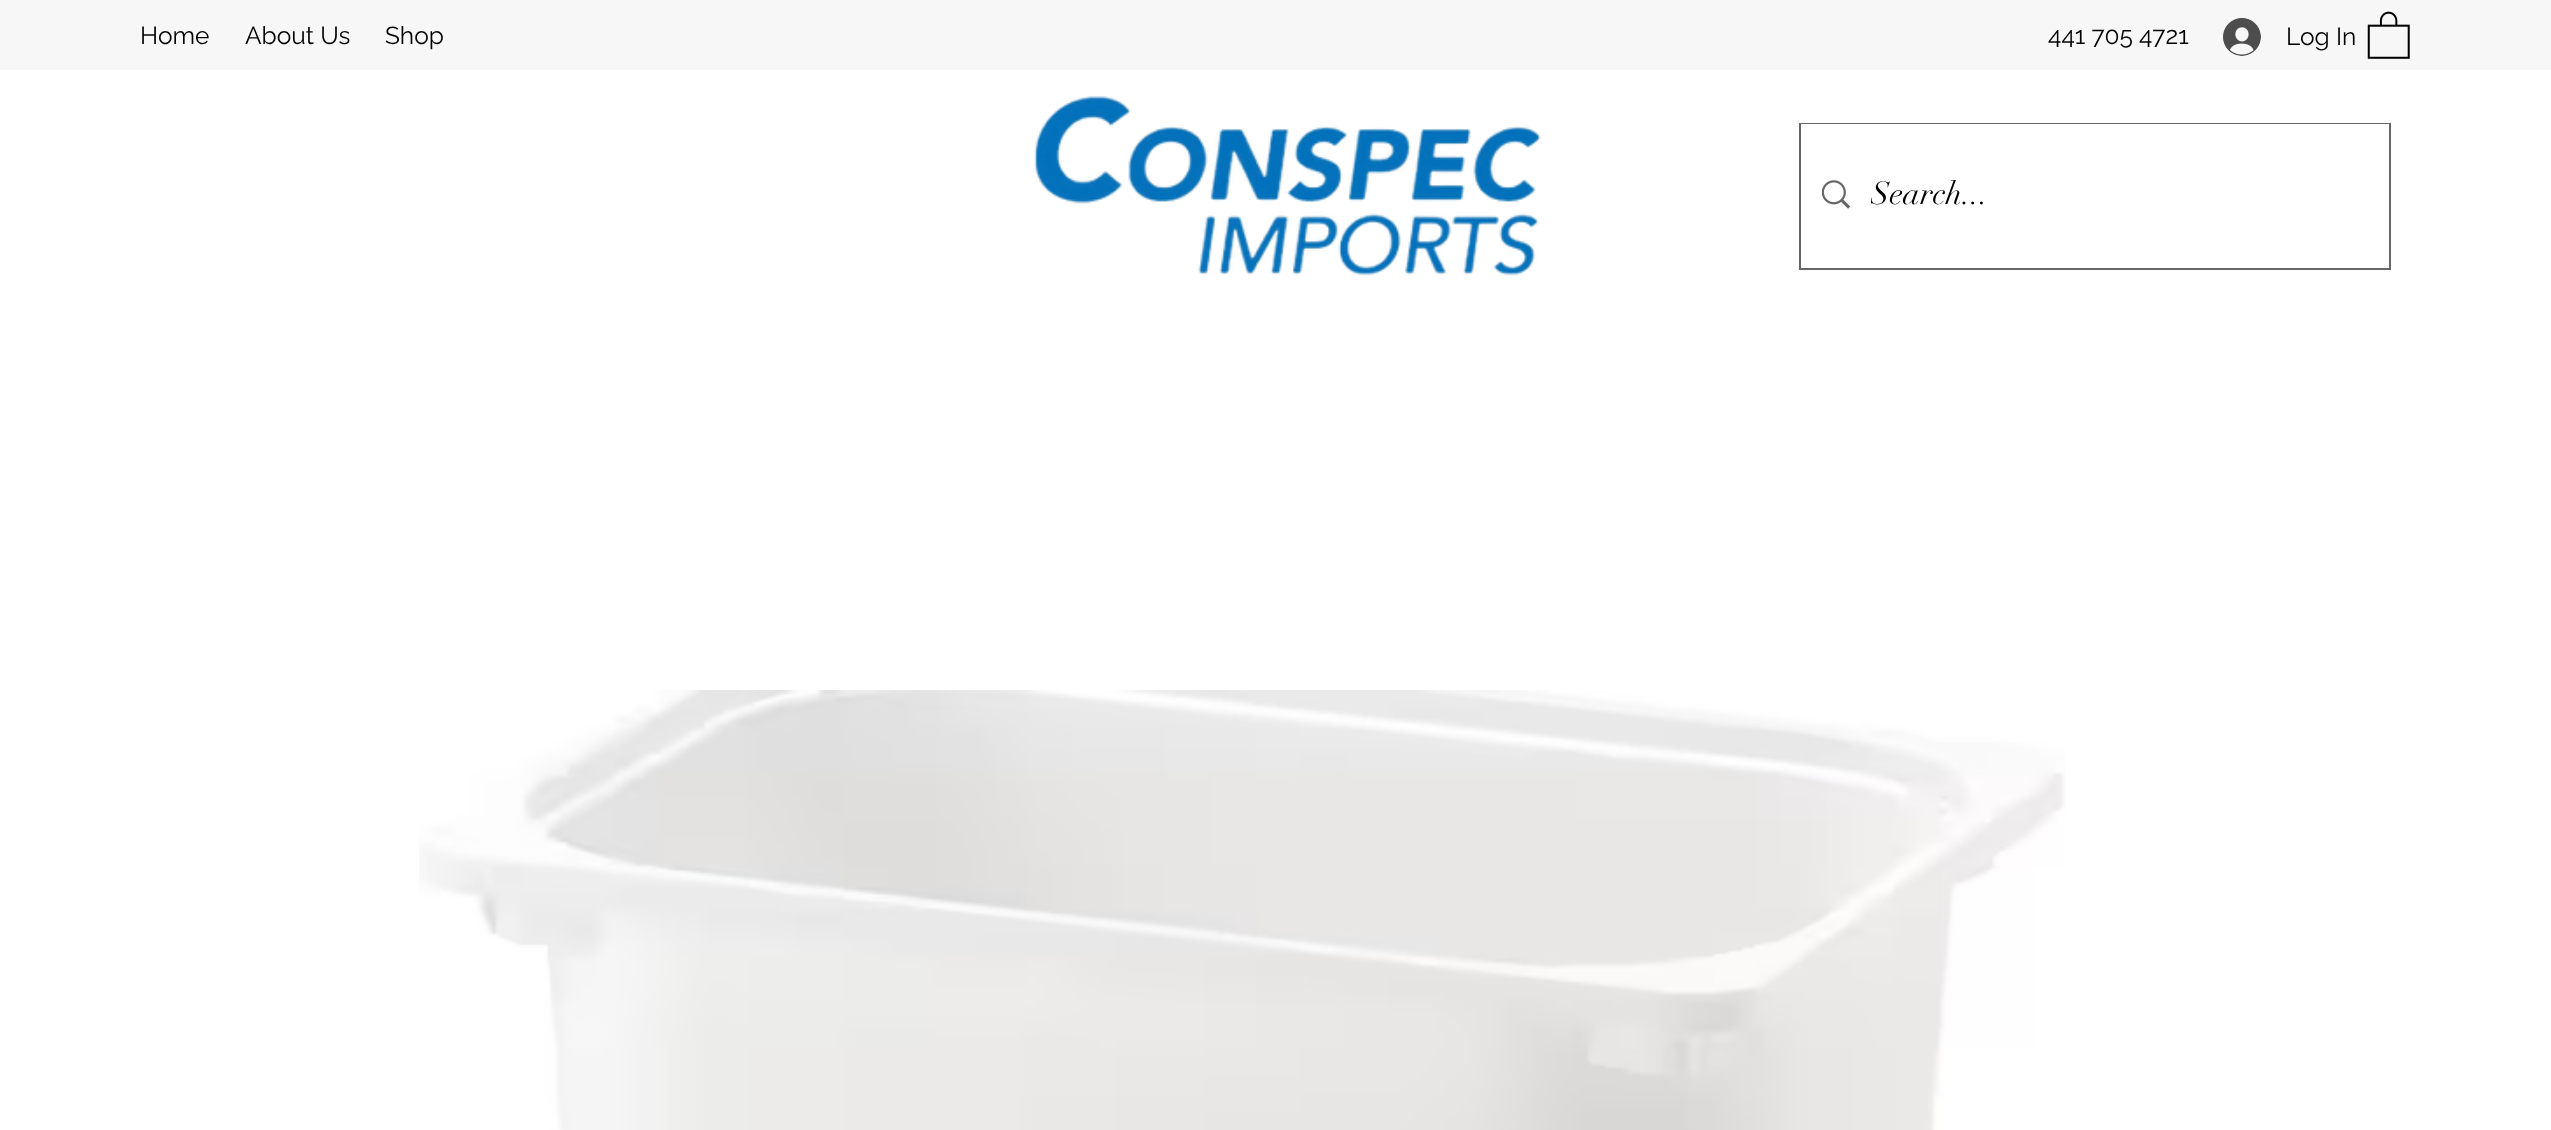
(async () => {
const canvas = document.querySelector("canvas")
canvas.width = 2551
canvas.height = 1130
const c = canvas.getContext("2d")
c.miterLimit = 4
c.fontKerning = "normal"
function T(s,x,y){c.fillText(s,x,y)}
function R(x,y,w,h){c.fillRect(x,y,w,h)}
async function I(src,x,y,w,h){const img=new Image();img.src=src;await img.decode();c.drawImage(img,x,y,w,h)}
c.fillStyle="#fff"
R(0,0,2551,1130)
c.fillStyle="#f7f7f7"
R(0,0,2551,70)
c.font="24.5px Raleway"
c.fillStyle="#000"
T("Home",140,44)
T("About Us",245,44)
T("Shop",385,44)
T("441 705 4721",2048,44)
await I("1.png",2223,18,38,38)
T("Log In",2286,45)
await I("2.png",2367,11,43,48)
await I("3.png",1034,95,507,181)
c.strokeStyle="#666"
c.lineWidth=2
c.strokeRect(1800,124,590,145)
c.fillStyle="#fff"
R(1801,124,588,1)
await I("4.png",1822,180,28,29)
c.save()
c.beginPath()
c.rect(1871,175,444,39)
c.clip()
c.font="31.5px didot"
c.fillStyle="#000"
T("Search...",1871,204)
c.restore()
await I("5.png",419,690,1646,440)
})()
